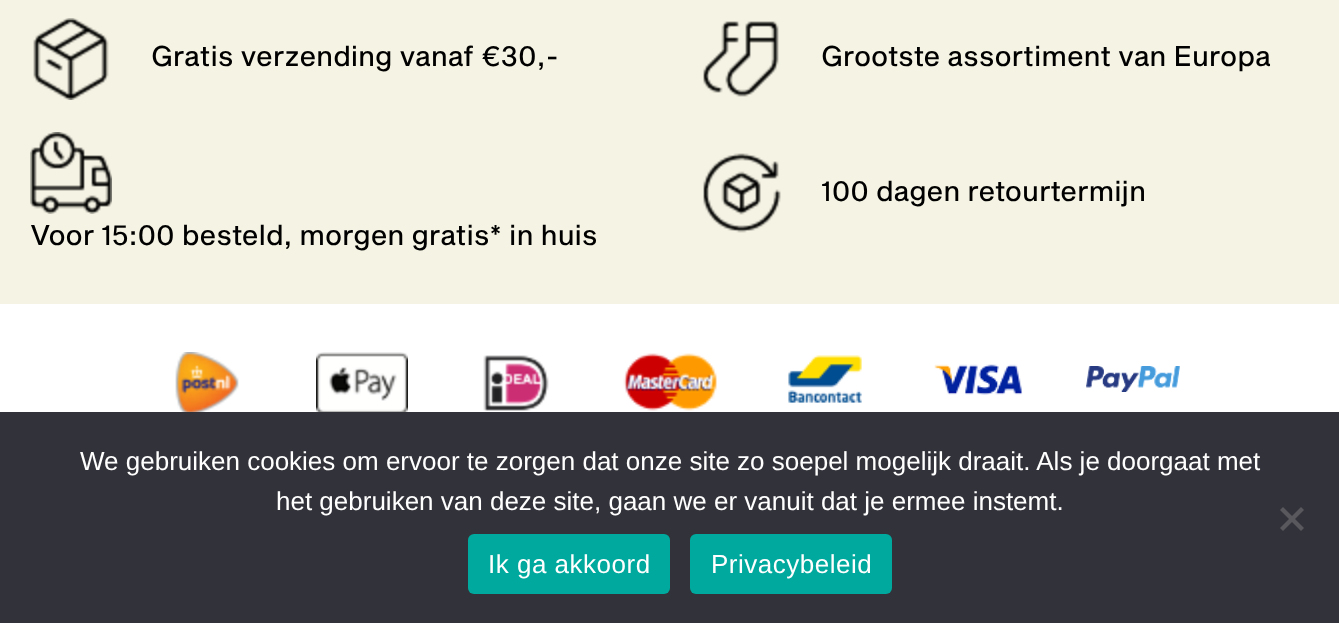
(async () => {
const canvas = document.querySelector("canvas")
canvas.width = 1339
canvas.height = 623
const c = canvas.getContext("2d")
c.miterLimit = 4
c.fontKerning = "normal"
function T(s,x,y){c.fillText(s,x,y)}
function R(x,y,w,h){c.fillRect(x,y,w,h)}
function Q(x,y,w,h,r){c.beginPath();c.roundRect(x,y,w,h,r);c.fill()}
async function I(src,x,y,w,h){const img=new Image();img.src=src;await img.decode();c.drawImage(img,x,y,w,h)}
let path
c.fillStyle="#fff"
R(0,0,1339,623)
c.fillStyle="#f5f3e3"
R(0,0,1339,304)
await I("1.png",33,18,76,82)
c.font="28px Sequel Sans"
c.fillStyle="#000"
T("Gratis verzending vanaf €30,-",151,66)
await I("2.png",703,21,76,76)
T("Grootste assortiment van Europa",821,66)
await I("3.png",703,153,78,80)
T("100 dagen retourtermijn",821,201)
await I("4.png",30,132,82,82)
T("Voor 15:00 besteld, morgen gratis* in huis",30,245)
await I("5.png",175,352,64,60)
await I("6.png",316,352,92,60)
await I("7.png",483,355,66,56)
await I("8.png",623,353,94,58)
await I("9.png",788,355,74,48)
await I("10.png",934,364,89,31)
await I("11.png",1086,366,94,26)
c.fillStyle="#32323a"
R(0,412,1339,211)
c.font="26px Liberation Sans"
c.fillStyle="#fff"
T("We gebruiken cookies om ervoor te zorgen dat onze site zo soepel mogelijk draait. Als je doorgaat met",80,470)
T("het gebruiken van deze site, gaan we er vanuit dat je ermee instemt.",276,510)
c.fillStyle="#59595d"
path = new Path2D("M1301 507l3 3l-21 21l-3-3z")
c.fill(path)
path = new Path2D("M1280 510l3-3l21 21l-3 3z")
c.fill(path)
c.fillStyle="#00a99d"
Q(468,534,202,60,6)
c.letterSpacing="0.5px"
c.fillStyle="#fff"
T("Ik ga akkoord",488,573)
c.fillStyle="#00a99d"
Q(690,534,202,60,6)
c.fillStyle="#fff"
T("Privacybeleid",711,573)
})()
